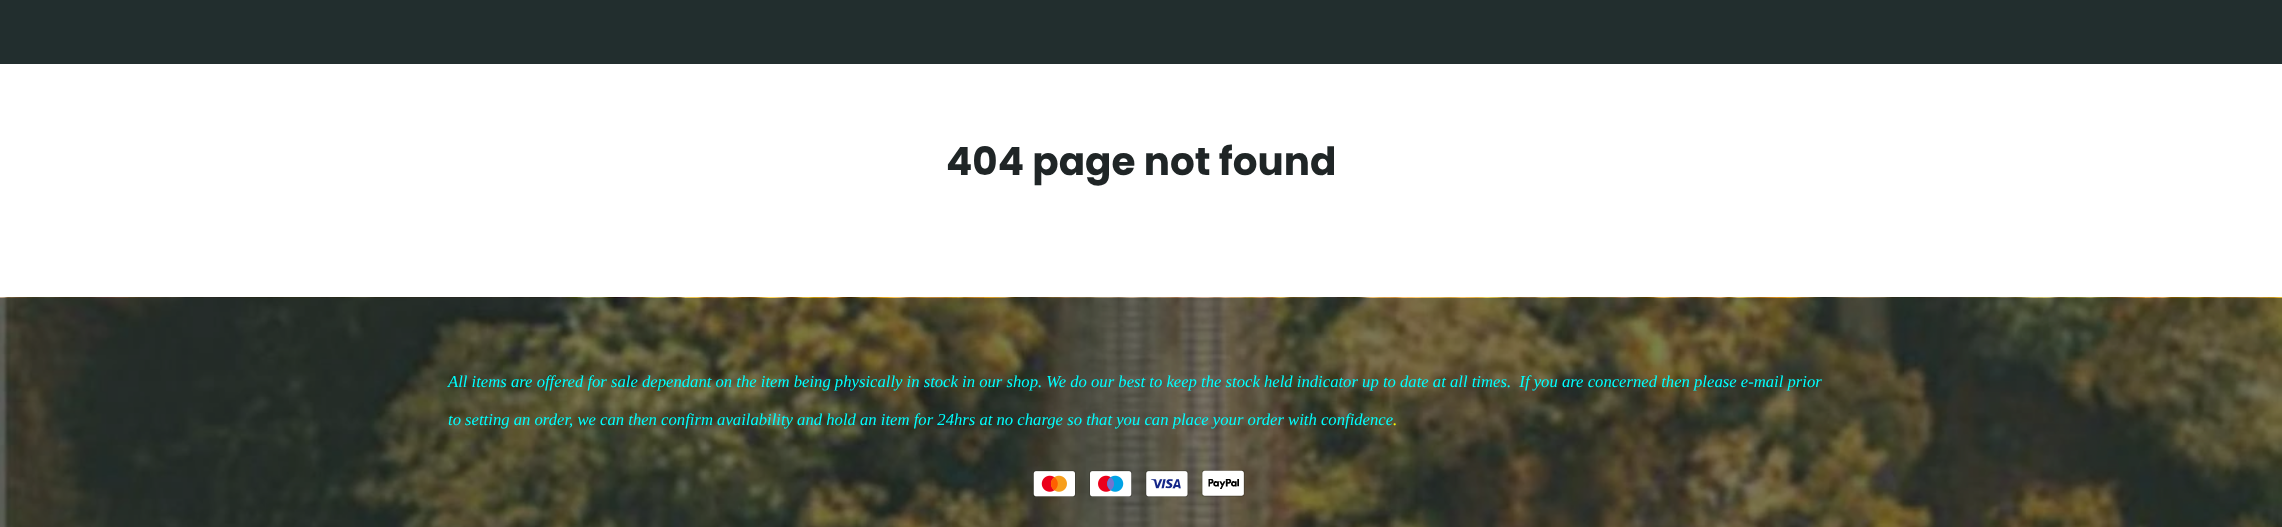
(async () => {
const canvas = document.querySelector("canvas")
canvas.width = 2282
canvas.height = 527
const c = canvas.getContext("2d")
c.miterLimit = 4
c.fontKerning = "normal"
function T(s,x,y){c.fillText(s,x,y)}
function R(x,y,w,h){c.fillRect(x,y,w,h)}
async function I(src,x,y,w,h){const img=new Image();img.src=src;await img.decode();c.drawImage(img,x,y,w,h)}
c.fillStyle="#fff"
R(0,0,2282,527)
c.fillStyle="#222e2e"
R(0,0,2282,64)
c.font="bold 38.9px Poppins"
c.fillStyle="#1f2526"
T("404 page not found",946,175)
await I("1.png",0,297,2282,230)
c.font="italic 16.67px Liberation Serif"
c.fillStyle="#0ff"
T("All items are offered for sale dependant on the item being physically in stock in our shop. We do our best to keep the stock held indicator up to date at all times.  If you are concerned then please e-mail prior",448,387)
T("to setting an order, we can then confirm availability and hold an item for 24hrs at no charge so that you can place your order with confidence",448,425)
c.fillStyle="#ff0"
T(".",1393,425)
await I("2.png",1033,470,43,27)
await I("3.png",1089,470,43,27)
await I("4.png",1145,470,44,28)
await I("5.png",1201,470,44,27)
})()
